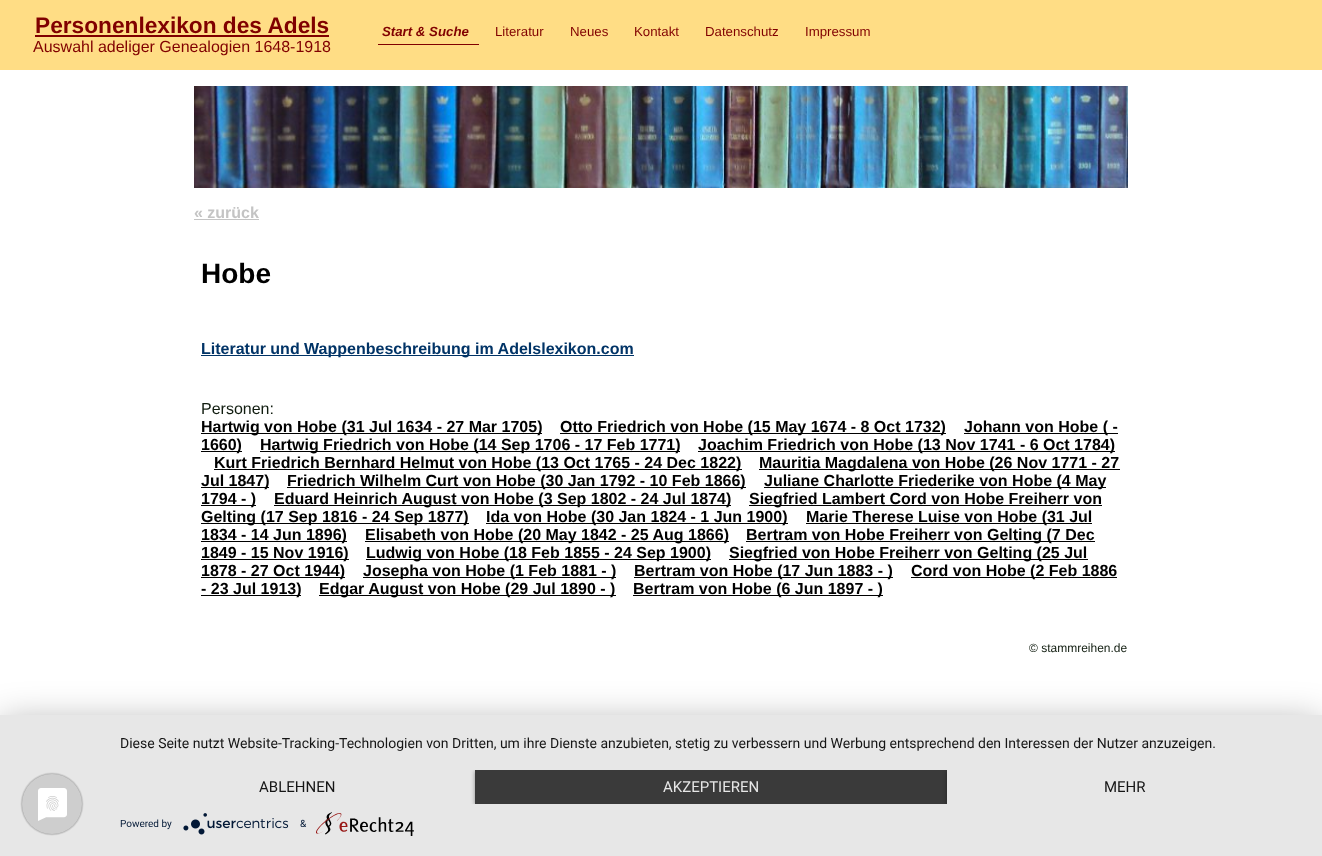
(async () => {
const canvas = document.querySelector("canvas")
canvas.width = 1322
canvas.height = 856
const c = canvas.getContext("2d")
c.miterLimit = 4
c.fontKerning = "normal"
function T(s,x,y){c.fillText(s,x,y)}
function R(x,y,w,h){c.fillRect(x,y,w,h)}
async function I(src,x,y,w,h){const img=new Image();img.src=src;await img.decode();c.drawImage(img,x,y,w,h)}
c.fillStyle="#fff"
R(0,0,1322,856)
c.fillStyle="#ffdd85"
R(0,0,1322,70)
c.font="bold 22.7px Liberation Sans"
c.fillStyle="#800000"
T("Personenlexikon des Adels",35,33)
R(35,35,294,2)
c.font="16px Liberation Sans"
T("Auswahl adeliger Genealogien 1648-1918",33,52)
R(378,44,101,1)
c.font="italic bold 13.25px Liberation Sans"
T("Start & Suche",382,36)
c.font="13.25px Liberation Sans"
T("Literatur",495,36)
T("Neues",570,36)
T("Kontakt",634,36)
T("Datenschutz",705,36)
T("Impressum",805,36)
await I("1.png",194,86,934,102)
c.font="bold 16px Liberation Sans"
c.fillStyle="#c4c4c4"
T("« zurück",194,218)
R(194,219,65,1)
c.font="bold 28px Liberation Sans"
c.fillStyle="#000"
T("Hobe",201,283)
c.fillStyle="#036"
R(201,355,433,1)
c.font="bold 16px Liberation Sans"
T("Literatur und Wappenbeschreibung im Adelslexikon.com",201,354)
c.font="16px Liberation Sans"
c.fillStyle="#111d10"
T("Personen:",201,414)
c.fillStyle="#000"
R(201,433,341,1)
c.font="bold 16px Liberation Sans"
T("Hartwig von Hobe (31 Jul 1634 - 27 Mar 1705)",201,432)
R(560,433,386,1)
T("Otto Friedrich von Hobe (15 May 1674 - 8 Oct 1732)",560,432)
R(964,433,154,1)
T("Johann von Hobe ( -",964,432)
R(201,451,41,1)
T("1660)",201,450)
R(260,451,420,1)
T("Hartwig Friedrich von Hobe (14 Sep 1706 - 17 Feb 1771)",260,450)
R(698,451,417,1)
T("Joachim Friedrich von Hobe (13 Nov 1741 - 6 Oct 1784)",698,450)
R(214,469,528,1)
T("Kurt Friedrich Bernhard Helmut von Hobe (13 Oct 1765 - 24 Dec 1822)",214,468)
R(759,469,361,1)
T("Mauritia Magdalena von Hobe (26 Nov 1771 - 27",759,468)
R(201,487,68,1)
T("Jul 1847)",201,486)
R(287,487,459,1)
T("Friedrich Wilhelm Curt von Hobe (30 Jan 1792 - 10 Feb 1866)",287,486)
R(764,487,342,1)
T("Juliane Charlotte Friederike von Hobe (4 May",764,486)
R(201,505,55,1)
T("1794 - )",201,504)
R(274,505,457,1)
T("Eduard Heinrich August von Hobe (3 Sep 1802 - 24 Jul 1874)",274,504)
R(749,505,353,1)
T("Siegfried Lambert Cord von Hobe Freiherr von",749,504)
R(201,523,268,1)
T("Gelting (17 Sep 1816 - 24 Sep 1877)",201,522)
R(486,523,302,1)
T("Ida von Hobe (30 Jan 1824 - 1 Jun 1900)",486,522)
R(806,523,286,1)
T("Marie Therese Luise von Hobe (31 Jul",806,522)
R(201,541,146,1)
T("1834 - 14 Jun 1896)",201,540)
R(365,541,364,1)
T("Elisabeth von Hobe (20 May 1842 - 25 Aug 1866)",365,540)
R(746,541,349,1)
T("Bertram von Hobe Freiherr von Gelting (7 Dec",746,540)
R(201,559,148,1)
T("1849 - 15 Nov 1916)",201,558)
R(366,559,345,1)
T("Ludwig von Hobe (18 Feb 1855 - 24 Sep 1900)",366,558)
R(729,559,359,1)
T("Siegfried von Hobe Freiherr von Gelting (25 Jul",729,558)
R(201,577,144,1)
T("1878 - 27 Oct 1944)",201,576)
R(363,577,253,1)
T("Josepha von Hobe (1 Feb 1881 - )",363,576)
R(634,577,259,1)
T("Bertram von Hobe (17 Jun 1883 - )",634,576)
R(911,577,206,1)
T("Cord von Hobe (2 Feb 1886",911,576)
R(201,595,100,1)
T("- 23 Jul 1913)",201,594)
R(319,595,297,1)
T("Edgar August von Hobe (29 Jul 1890 - )",319,594)
R(633,595,250,1)
T("Bertram von Hobe (6 Jun 1897 - )",633,594)
c.font="12px Liberation Sans"
c.fillStyle="#111d10"
T("© stammreihen.de",1029,652)
c.fillStyle="#0000004d"
c.filter="blur(18px)"
c.beginPath()
c.rect(0,721,1322,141)
c.fill()
c.filter="none"
c.fillStyle="#e7e7e7"
R(0,715,1322,141)
await I("2.png",20,772,64,64)
c.font="14px Roboto"
c.fillStyle="#161616"
T("Diese Seite nutzt Website-Tracking-Technologien von Dritten, um ihre Dienste anzubieten, stetig zu verbessern und Werbung entsprechend den Interessen der Nutzer anzuzeigen.",120,748)
c.font="15px Roboto"
T("ABLEHNEN",259,792)
c.save()
c.beginPath()
c.rect(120,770,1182,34)
c.clip()
c.fillStyle="#00000066"
c.filter="blur(2px)"
c.beginPath()
c.rect(475,771,472,34)
c.fill()
c.filter="none"
c.restore()
c.fillStyle="#3a3a3a"
R(475,770,472,34)
c.fillStyle="#e6e6e6"
T("AKZEPTIEREN",663,792)
c.save()
c.beginPath()
c.rect(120,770,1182,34)
c.clip()
c.fillStyle="#00000066"
c.filter="blur(2px)"
c.beginPath()
c.rect(947,771,355,34)
c.fill()
c.filter="none"
c.restore()
c.fillStyle="#e7e7e7"
R(947,770,355,34)
c.fillStyle="#161616"
T("MEHR",1104,792)
c.font="10px Roboto"
c.fillStyle="#021836"
T("Powered by",120,827)
await I("3.png",183,813,106,22)
T("&",300,827)
await I("4.png",316,812,98,24)
})()
